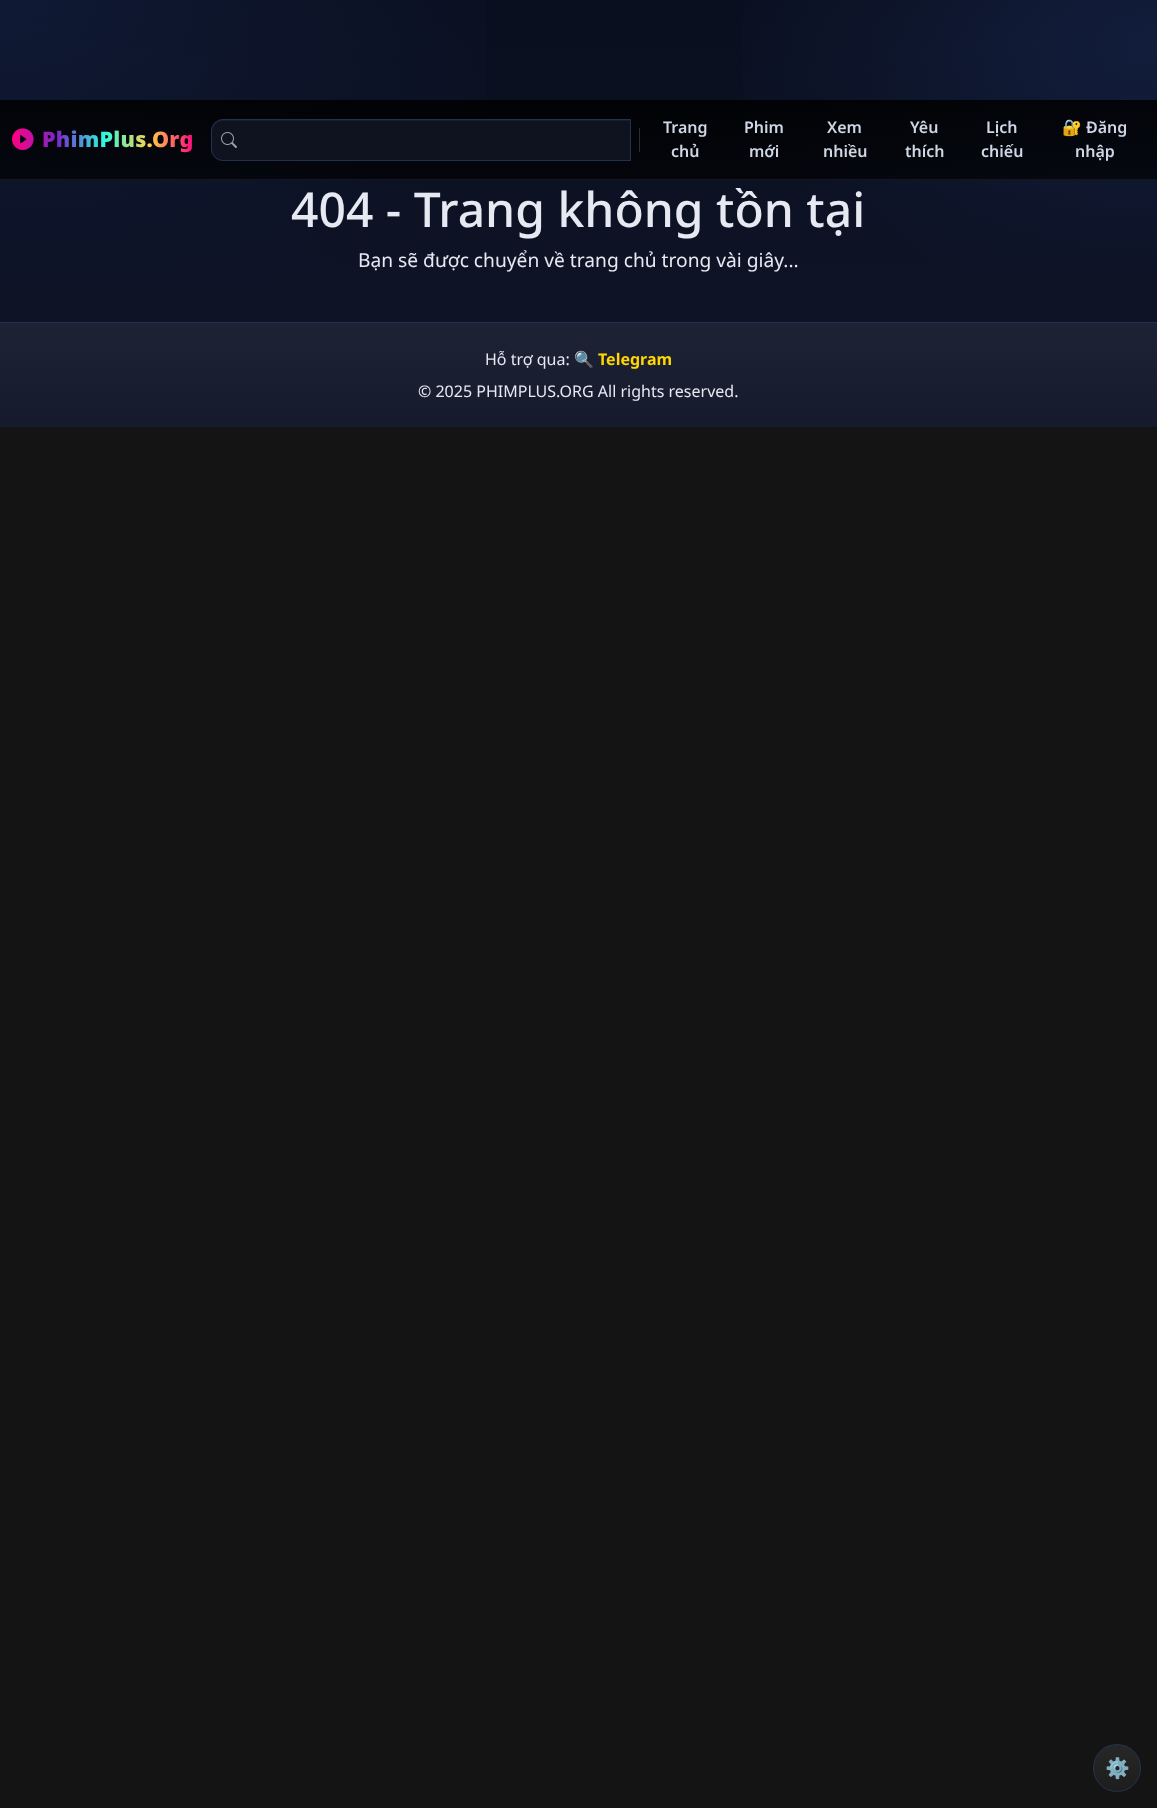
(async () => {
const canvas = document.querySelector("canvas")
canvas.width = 1157
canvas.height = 1808
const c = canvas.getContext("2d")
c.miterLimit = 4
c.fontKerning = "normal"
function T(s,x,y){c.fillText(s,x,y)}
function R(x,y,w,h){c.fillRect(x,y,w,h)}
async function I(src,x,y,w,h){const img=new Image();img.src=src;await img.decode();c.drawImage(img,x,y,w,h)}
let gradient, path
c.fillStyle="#141414"
R(0,0,1157,1808)
gradient = c.createLinearGradient(579,0,579,427)
gradient.addColorStop(0,"#0a0f1f")
gradient.addColorStop(1,"#0f1428")
c.fillStyle = gradient
R(0,0,1157,322)
gradient = c.createRadialGradient(1157,77.4,0,1157,77.4,900)
gradient.addColorStop(0,"#1a2c5980")
gradient.addColorStop(.5,"#1a2c5900")
c.fillStyle = gradient
c.beginPath()
c.rect(743,0,414,268)
c.save()
c.clip()
c.scale(1,500 / 900)
c.fillRect(0,0,1157,3255)
c.restore()
gradient = c.createRadialGradient(0,0,0,0,0,1000)
gradient.addColorStop(0,"#13204299")
gradient.addColorStop(.55,"#13204200")
c.fillStyle = gradient
c.beginPath()
c.rect(0,0,486,284)
c.save()
c.clip()
c.scale(1,600 / 1000)
c.fillRect(0,0,1157,3014)
c.restore()
gradient = c.createLinearGradient(579,100,579,179)
gradient.addColorStop(0,"#000000d9")
gradient.addColorStop(1,"#000000a6")
c.fillStyle = gradient
R(0,100,1157,79)
c.fillStyle="#16171a"
R(0,179,1157,1)
await I("1.png",12,128,22,22)
c.letterSpacing="0.25px"
c.font="900 21.5px Noto Sans"
gradient = c.createLinearGradient(12,140,195,140)
gradient.addColorStop(0,"#ff0080")
gradient.addColorStop(.25,"#7928ca")
gradient.addColorStop(.5,"#2afadf")
gradient.addColorStop(.75,"#ffd247")
gradient.addColorStop(1,"#ff0080")
c.fillStyle = gradient
T("PhimPlus.Org",42,147)
c.fillStyle="#0f1320"
c.beginPath()
c.roundRect(211,119,420,42,[12,0,0,12])
c.fill()
c.fillStyle="#191c29"
path = new Path2D("M223 121h407v-1h-409c-6 1-9 6-9 12c0-6 5-11 11-11z")
c.fill(path)
c.beginPath()
c.roundRect(211.5,119.5,419,41,[11.5,0,0,11.5])
c.strokeStyle="#223151"
c.stroke()
await I("2.png",221,132,16,16)
c.fillStyle="#2b2c30"
R(639,128,1,24)
c.letterSpacing="0px"
c.font="600 16px Noto Sans"
c.fillStyle="#cfd6e4"
T("Trang",663,133)
T("chủ",671,157)
T("Phim",744,133)
T("mới",749,157)
T("Xem",827,133)
T("nhiều",823,157)
T("Yêu",910,133)
T("thích",905,157)
T("Lịch",986,133)
T("chiếu",981,157)
c.font="bold 16px Noto Color Emoji"
T("🔐",1062,133)
c.font="600 16px Noto Sans"
T("Đăng",1086,133)
T("nhập",1075,157)
c.font="500 48px Noto Sans"
c.fillStyle="#e6e9f2"
T("404 - Trang không tồn tại",291,227)
c.font="19.2px Noto Sans"
T("Bạn sẽ được chuyển về trang chủ trong vài giây...",358,267)
gradient = c.createLinearGradient(579,323,579,427)
gradient.addColorStop(0,"#1d2234")
gradient.addColorStop(1,"#161a2d")
c.fillStyle = gradient
R(0,323,1157,104)
c.fillStyle="#223151"
R(0,322,1157,1)
c.font="16px Noto Sans"
c.fillStyle="#e6e9f2"
T("Hỗ trợ qua:",485,365)
c.font="bold 16px Noto Color Emoji"
c.fillStyle="#ffd700"
T("🔍",574,365)
c.font="bold 16px Noto Sans"
T("Telegram",598,365)
c.font="16px Noto Sans"
c.fillStyle="#e6e9f2"
T("© 2025 PHIMPLUS.ORG All rights reserved.",418,397)
c.save()
c.beginPath()
c.roundRect(1093,1744,48,48,24)
c.clip()
gradient = c.createLinearGradient(1117,1745,1117,1791)
gradient.addColorStop(0,"#272727")
gradient.addColorStop(1,"#1d1d1d")
c.fillStyle = gradient
R(1093,1745,48,46)
c.restore()
c.beginPath()
c.arc(1117,1768,23.5,0,7)
c.stroke()
c.font="20px Noto Color Emoji"
c.fillStyle="#000"
T("⚙️",1105,1775)
})()
